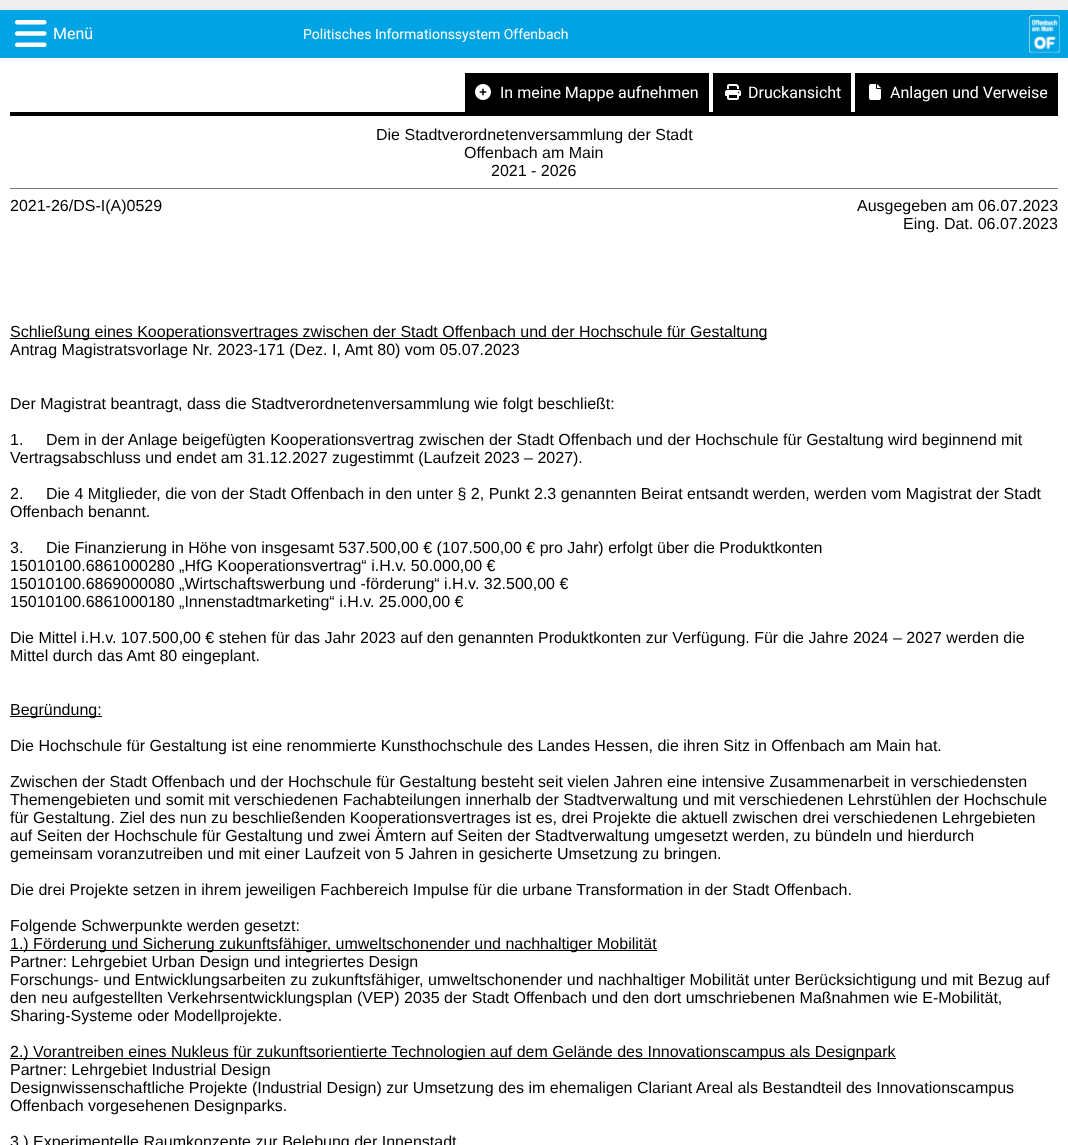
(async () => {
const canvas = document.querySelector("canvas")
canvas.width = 1068
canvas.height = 1145
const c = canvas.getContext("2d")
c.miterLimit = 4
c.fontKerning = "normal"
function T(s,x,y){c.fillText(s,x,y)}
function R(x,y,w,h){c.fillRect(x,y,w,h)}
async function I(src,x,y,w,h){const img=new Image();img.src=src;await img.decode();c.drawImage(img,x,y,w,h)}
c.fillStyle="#eee"
R(0,0,1068,1145)
c.fillStyle="#fff"
R(0,58,1068,1087)
c.fillStyle="#00a3e4"
R(0,10,1068,48)
await I("1.png",15,20,32,27)
c.font="16px Roboto"
c.fillStyle="#fff"
T("Menü",53,39)
c.font="14px Roboto"
T("Politisches Informationssystem Offenbach",303,39)
await I("2.png",1029,15,31,38)
c.fillStyle="#000"
R(10,112,1048,4)
R(465,73,244,39)
await I("3.png",475,84,16,16)
c.font="16px Roboto"
c.fillStyle="#fff"
T("In meine Mappe aufnehmen",500,98)
c.fillStyle="#000"
R(713,73,138,39)
await I("4.png",725,84,16,16)
c.fillStyle="#fff"
T("Druckansicht",748,98)
c.fillStyle="#000"
R(855,73,203,39)
await I("5.png",869,84,12,16)
c.fillStyle="#fff"
T("Anlagen und Verweise",890,98)
c.font="16px Liberation Sans"
c.fillStyle="#000"
T("Die Stadtverordnetenversammlung der Stadt",376,140)
T("Offenbach am Main",464,158)
T("2021 - 2026",491,176)
c.fillStyle="#7f7f7f"
R(10,188,1048,1)
c.fillStyle="#000"
T("2021-26/DS-I(A)0529",10,211)
T("Ausgegeben am 06.07.2023",857,211)
T("Eing. Dat. 06.07.2023",903,229)
R(10,338,757,1)
T("Schließung eines Kooperationsvertrages zwischen der Stadt Offenbach und der Hochschule für Gestaltung",10,337)
T("Antrag Magistratsvorlage Nr. 2023-171 (Dez. I, Amt 80) vom 05.07.2023",10,355)
T("Der Magistrat beantragt, dass die Stadtverordnetenversammlung wie folgt beschließt:",10,409)
T("1.",10,445)
T("Dem in der Anlage beigefügten Kooperationsvertrag zwischen der Stadt Offenbach und der Hochschule für Gestaltung wird beginnend mit",46,445)
T("Vertragsabschluss und endet am 31.12.2027 zugestimmt (Laufzeit 2023 – 2027).",10,463)
T("2.",10,499)
T("Die 4 Mitglieder, die von der Stadt Offenbach in den unter § 2, Punkt 2.3 genannten Beirat entsandt werden, werden vom Magistrat der Stadt",46,499)
T("Offenbach benannt.",10,517)
T("3.",10,553)
T("Die Finanzierung in Höhe von insgesamt 537.500,00 € (107.500,00 € pro Jahr) erfolgt über die Produktkonten",46,553)
T("15010100.6861000280 „HfG Kooperationsvertrag“ i.H.v. 50.000,00 €",10,571)
T("15010100.6869000080 „Wirtschaftswerbung und -förderung“ i.H.v. 32.500,00 €",10,589)
T("15010100.6861000180 „Innenstadtmarketing“ i.H.v. 25.000,00 €",10,607)
T("Die Mittel i.H.v. 107.500,00 € stehen für das Jahr 2023 auf den genannten Produktkonten zur Verfügung. Für die Jahre 2024 – 2027 werden die",10,643)
T("Mittel durch das Amt 80 eingeplant.",10,661)
R(10,716,92,1)
T("Begründung:",10,715)
T("Die Hochschule für Gestaltung ist eine renommierte Kunsthochschule des Landes Hessen, die ihren Sitz in Offenbach am Main hat.",10,751)
T("Zwischen der Stadt Offenbach und der Hochschule für Gestaltung besteht seit vielen Jahren eine intensive Zusammenarbeit in verschiedensten",10,787)
T("Themengebieten und somit mit verschiedenen Fachabteilungen innerhalb der Stadtverwaltung und mit verschiedenen Lehrstühlen der Hochschule",10,805)
T("für Gestaltung. Ziel des nun zu beschließenden Kooperationsvertrages ist es, drei Projekte die aktuell zwischen drei verschiedenen Lehrgebieten",10,823)
T("auf Seiten der Hochschule für Gestaltung und zwei Ämtern auf Seiten der Stadtverwaltung umgesetzt werden, zu bündeln und hierdurch",10,841)
T("gemeinsam voranzutreiben und mit einer Laufzeit von 5 Jahren in gesicherte Umsetzung zu bringen.",10,859)
T("Die drei Projekte setzen in ihrem jeweiligen Fachbereich Impulse für die urbane Transformation in der Stadt Offenbach.",10,895)
T("Folgende Schwerpunkte werden gesetzt:",10,931)
R(10,950,647,1)
T("1.) Förderung und Sicherung zukunftsfähiger, umweltschonender und nachhaltiger Mobilität",10,949)
T("Partner: Lehrgebiet Urban Design und integriertes Design",10,967)
T("Forschungs- und Entwicklungsarbeiten zu zukunftsfähiger, umweltschonender und nachhaltiger Mobilität unter Berücksichtigung und mit Bezug auf",10,985)
T("den neu aufgestellten Verkehrsentwicklungsplan (VEP) 2035 der Stadt Offenbach und den dort umschriebenen Maßnahmen wie E-Mobilität,",10,1003)
T("Sharing-Systeme oder Modellprojekte.",10,1021)
R(10,1058,886,1)
T("2.) Vorantreiben eines Nukleus für zukunftsorientierte Technologien auf dem Gelände des Innovationscampus als Designpark",10,1057)
T("Partner: Lehrgebiet Industrial Design",10,1075)
T("Designwissenschaftliche Projekte (Industrial Design) zur Umsetzung des im ehemaligen Clariant Areal als Bestandteil des Innovationscampus",10,1093)
T("Offenbach vorgesehenen Designparks.",10,1111)
T("3.) Experimentelle Raumkonzepte zur Belebung der Innenstadt.",10,1147)
})()
